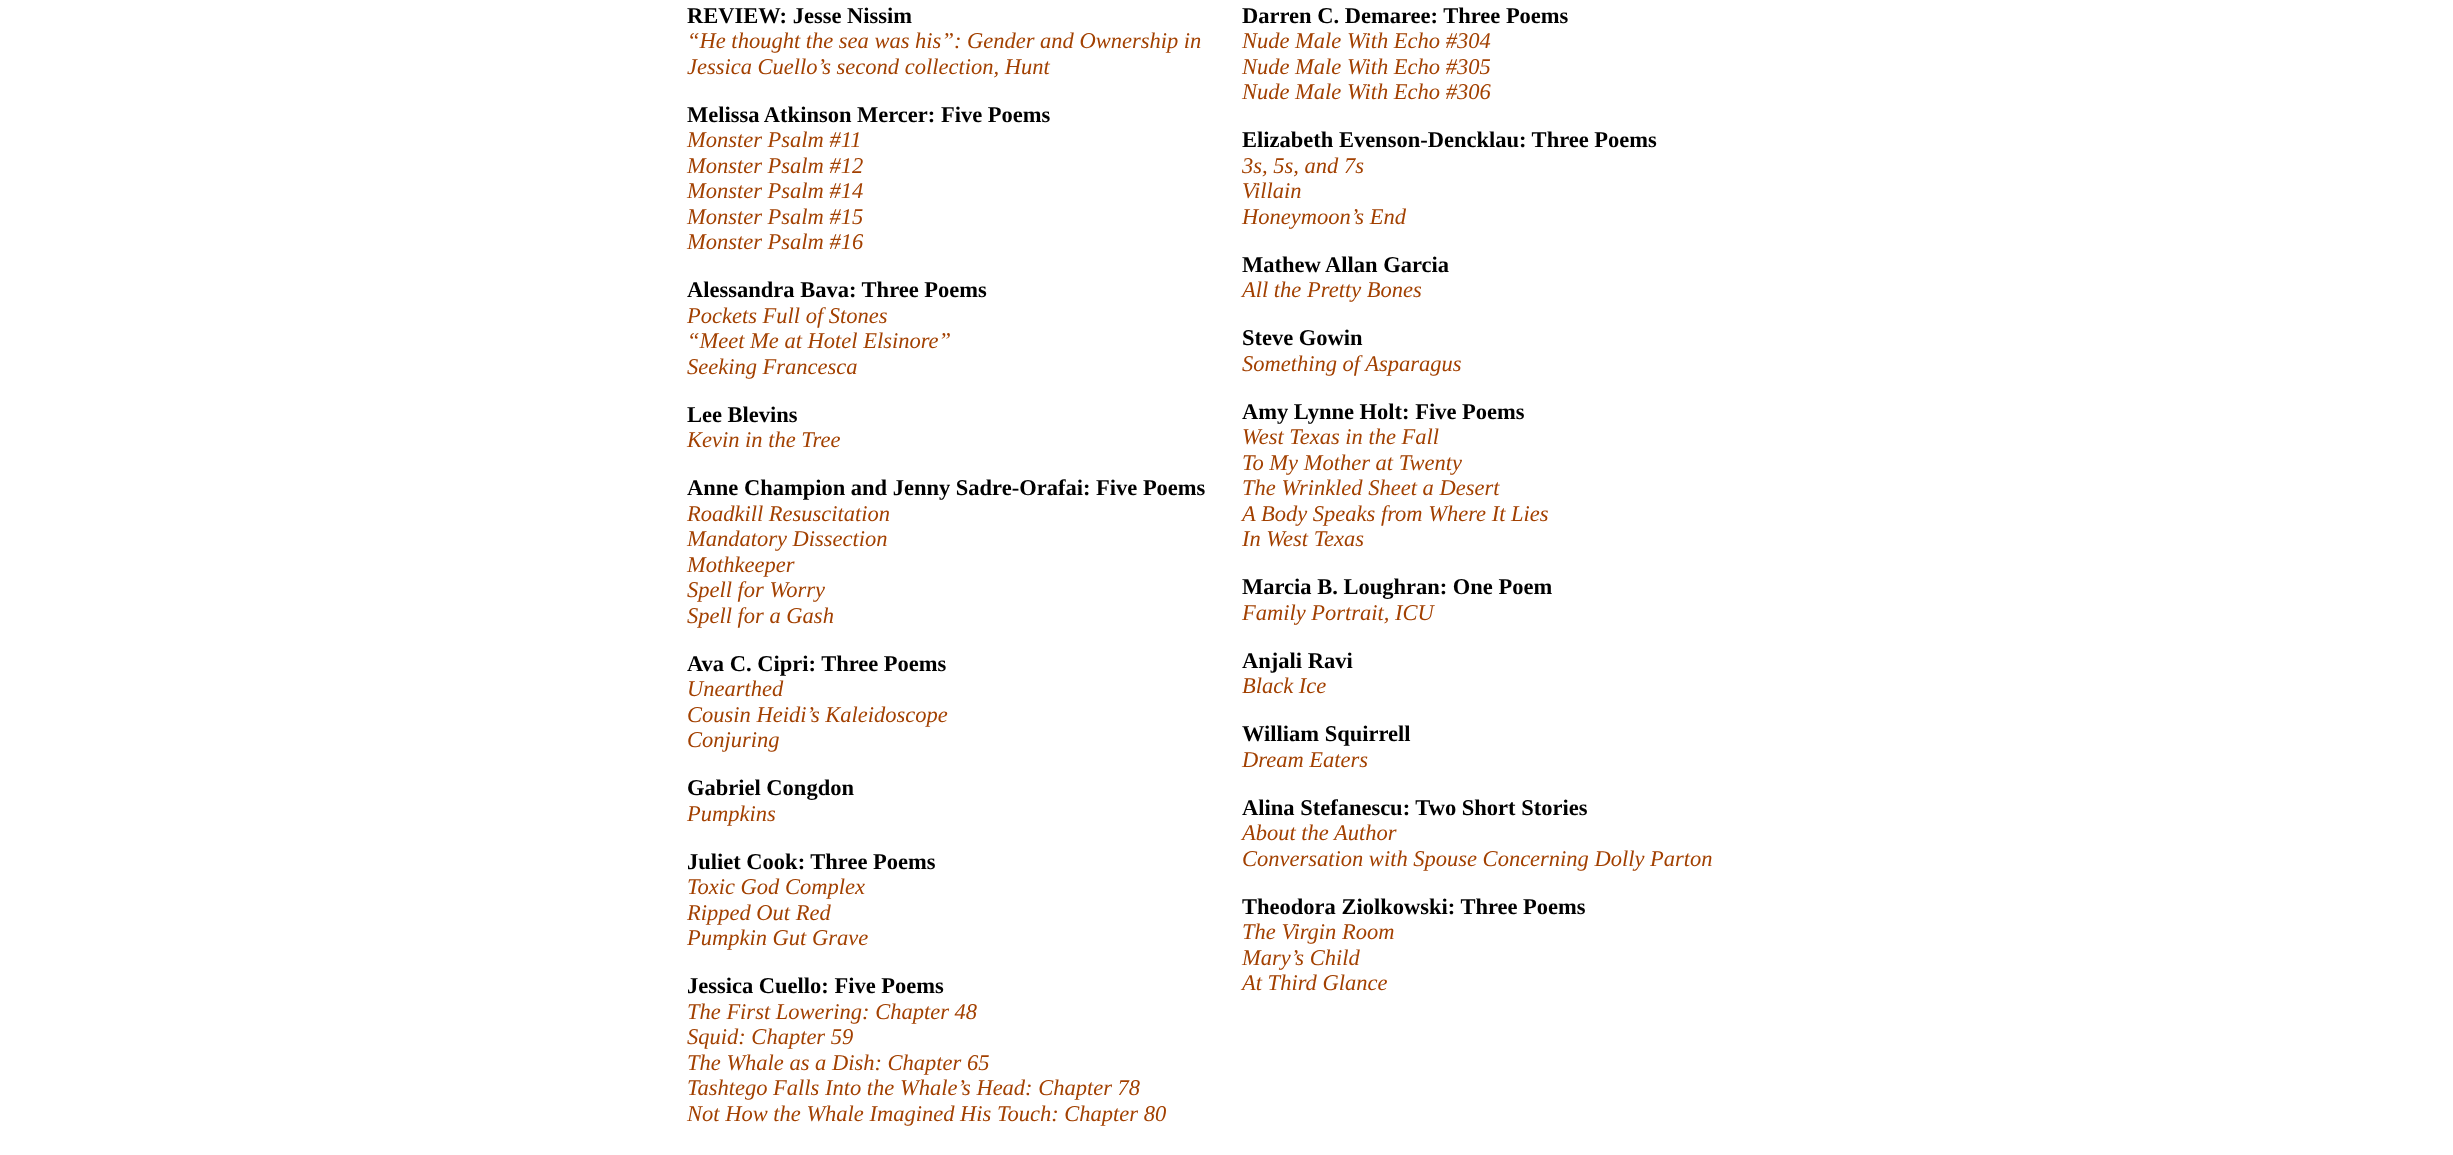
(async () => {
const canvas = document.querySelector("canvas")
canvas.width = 2453
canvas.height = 1155
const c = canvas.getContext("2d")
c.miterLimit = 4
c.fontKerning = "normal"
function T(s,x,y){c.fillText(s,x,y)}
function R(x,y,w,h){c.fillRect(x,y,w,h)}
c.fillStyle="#fff"
R(0,0,2453,1155)
c.font="bold 22.5px Liberation Serif"
c.fillStyle="#000"
T("REVIEW: Jesse Nissim",687,23)
c.font="italic 22.5px Liberation Serif"
c.fillStyle="#a24000"
T("“He thought the sea was his”: Gender and Ownership in",687,48)
T("Jessica Cuello’s second collection, Hunt",687,74)
c.font="bold 22.5px Liberation Serif"
c.fillStyle="#000"
T("Melissa Atkinson Mercer: Five Poems",687,122)
c.font="italic 22.5px Liberation Serif"
c.fillStyle="#a24000"
T("Monster Psalm #11",687,147)
T("Monster Psalm #12",687,173)
T("Monster Psalm #14",687,198)
T("Monster Psalm #15",687,224)
T("Monster Psalm #16",687,249)
c.font="bold 22.5px Liberation Serif"
c.fillStyle="#000"
T("Alessandra Bava: Three Poems",687,297)
c.font="italic 22.5px Liberation Serif"
c.fillStyle="#a24000"
T("Pockets Full of Stones",687,323)
T("“Meet Me at Hotel Elsinore”",687,348)
T("Seeking Francesca",687,374)
c.font="bold 22.5px Liberation Serif"
c.fillStyle="#000"
T("Lee Blevins",687,422)
c.font="italic 22.5px Liberation Serif"
c.fillStyle="#a24000"
T("Kevin in the Tree",687,447)
c.font="bold 22.5px Liberation Serif"
c.fillStyle="#000"
T("Anne Champion and Jenny Sadre-Orafai: Five Poems",687,495)
c.font="italic 22.5px Liberation Serif"
c.fillStyle="#a24000"
T("Roadkill Resuscitation",687,521)
T("Mandatory Dissection",687,546)
T("Mothkeeper",687,572)
T("Spell for Worry",687,597)
T("Spell for a Gash",687,623)
c.font="bold 22.5px Liberation Serif"
c.fillStyle="#000"
T("Ava C. Cipri: Three Poems",687,671)
c.font="italic 22.5px Liberation Serif"
c.fillStyle="#a24000"
T("Unearthed",687,696)
T("Cousin Heidi’s Kaleidoscope",687,722)
T("Conjuring",687,747)
c.font="bold 22.5px Liberation Serif"
c.fillStyle="#000"
T("Gabriel Congdon",687,795)
c.font="italic 22.5px Liberation Serif"
c.fillStyle="#a24000"
T("Pumpkins",687,821)
c.font="bold 22.5px Liberation Serif"
c.fillStyle="#000"
T("Juliet Cook: Three Poems",687,869)
c.font="italic 22.5px Liberation Serif"
c.fillStyle="#a24000"
T("Toxic God Complex",687,894)
T("Ripped Out Red",687,920)
T("Pumpkin Gut Grave",687,945)
c.font="bold 22.5px Liberation Serif"
c.fillStyle="#000"
T("Jessica Cuello: Five Poems",687,993)
c.font="italic 22.5px Liberation Serif"
c.fillStyle="#a24000"
T("The First Lowering: Chapter 48",687,1019)
T("Squid: Chapter 59",687,1044)
T("The Whale as a Dish: Chapter 65",687,1070)
T("Tashtego Falls Into the Whale’s Head: Chapter 78",687,1095)
T("Not How the Whale Imagined His Touch: Chapter 80",687,1121)
c.font="bold 22.5px Liberation Serif"
c.fillStyle="#000"
T("Darren C. Demaree: Three Poems",1242,23)
c.font="italic 22.5px Liberation Serif"
c.fillStyle="#a24000"
T("Nude Male With Echo #304",1242,48)
T("Nude Male With Echo #305",1242,74)
T("Nude Male With Echo #306",1242,99)
c.font="bold 22.5px Liberation Serif"
c.fillStyle="#000"
T("Elizabeth Evenson-Dencklau: Three Poems",1242,147)
c.font="italic 22.5px Liberation Serif"
c.fillStyle="#a24000"
T("3s, 5s, and 7s",1242,173)
T("Villain",1242,198)
T("Honeymoon’s End",1242,224)
c.font="bold 22.5px Liberation Serif"
c.fillStyle="#000"
T("Mathew Allan Garcia",1242,272)
c.font="italic 22.5px Liberation Serif"
c.fillStyle="#a24000"
T("All the Pretty Bones",1242,297)
c.font="bold 22.5px Liberation Serif"
c.fillStyle="#000"
T("Steve Gowin",1242,345)
c.font="italic 22.5px Liberation Serif"
c.fillStyle="#a24000"
T("Something of Asparagus",1242,371)
c.font="bold 22.5px Liberation Serif"
c.fillStyle="#000"
T("Amy Lynne Holt: Five Poems",1242,419)
c.font="italic 22.5px Liberation Serif"
c.fillStyle="#a24000"
T("West Texas in the Fall",1242,444)
T("To My Mother at Twenty",1242,470)
T("The Wrinkled Sheet a Desert",1242,495)
T("A Body Speaks from Where It Lies",1242,521)
T("In West Texas",1242,546)
c.font="bold 22.5px Liberation Serif"
c.fillStyle="#000"
T("Marcia B. Loughran: One Poem",1242,594)
c.font="italic 22.5px Liberation Serif"
c.fillStyle="#a24000"
T("Family Portrait, ICU",1242,620)
c.font="bold 22.5px Liberation Serif"
c.fillStyle="#000"
T("Anjali Ravi",1242,668)
c.font="italic 22.5px Liberation Serif"
c.fillStyle="#a24000"
T("Black Ice",1242,693)
c.font="bold 22.5px Liberation Serif"
c.fillStyle="#000"
T("William Squirrell",1242,741)
c.font="italic 22.5px Liberation Serif"
c.fillStyle="#a24000"
T("Dream Eaters",1242,767)
c.font="bold 22.5px Liberation Serif"
c.fillStyle="#000"
T("Alina Stefanescu: Two Short Stories",1242,815)
c.font="italic 22.5px Liberation Serif"
c.fillStyle="#a24000"
T("About the Author",1242,840)
T("Conversation with Spouse Concerning Dolly Parton",1242,866)
c.font="bold 22.5px Liberation Serif"
c.fillStyle="#000"
T("Theodora Ziolkowski: Three Poems",1242,914)
c.font="italic 22.5px Liberation Serif"
c.fillStyle="#a24000"
T("The Virgin Room",1242,939)
T("Mary’s Child",1242,965)
T("At Third Glance",1242,990)
})()
